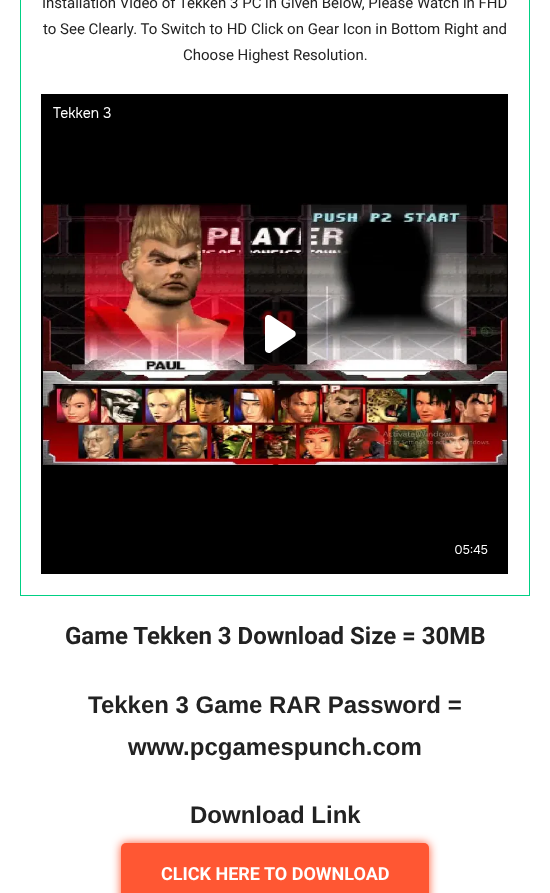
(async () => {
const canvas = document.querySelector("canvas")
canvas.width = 550
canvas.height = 893
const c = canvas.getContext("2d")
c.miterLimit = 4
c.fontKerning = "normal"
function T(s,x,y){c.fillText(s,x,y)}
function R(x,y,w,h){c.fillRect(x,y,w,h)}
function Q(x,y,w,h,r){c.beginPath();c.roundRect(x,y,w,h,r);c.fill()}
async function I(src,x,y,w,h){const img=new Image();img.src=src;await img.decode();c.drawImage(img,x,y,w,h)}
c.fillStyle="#fff"
R(0,0,550,893)
c.strokeStyle="#00d084"
c.strokeRect(20.5,-.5,509,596)
c.font="15px Roboto"
c.fillStyle="#222"
T("Installation Video of Tekken 3 PC in Given Below, Please Watch in FHD",42,8)
T("to See Clearly. To Switch to HD Click on Gear Icon in Bottom Right and",43,34)
T("Choose Highest Resolution.",183,60)
await I("1.png",41,94,467,480)
c.font="bold 24px Roboto"
T("Game Tekken 3 Download Size = 30MB",65,644)
c.font="bold 24px Liberation Sans"
T("Tekken 3 Game RAR Password =",88,713)
T("www.pcgamespunch.com",128,755)
T("Download Link",190,823)
c.fillStyle="#ff5733"
c.filter="blur(5px)"
c.beginPath()
c.roundRect(121,843,308,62,5)
c.fill()
c.filter="none"
Q(121,843,308,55,5)
c.font="bold 18px Roboto"
c.fillStyle="#fff"
T("CLICK HERE TO DOWNLOAD",161,880)
})()
